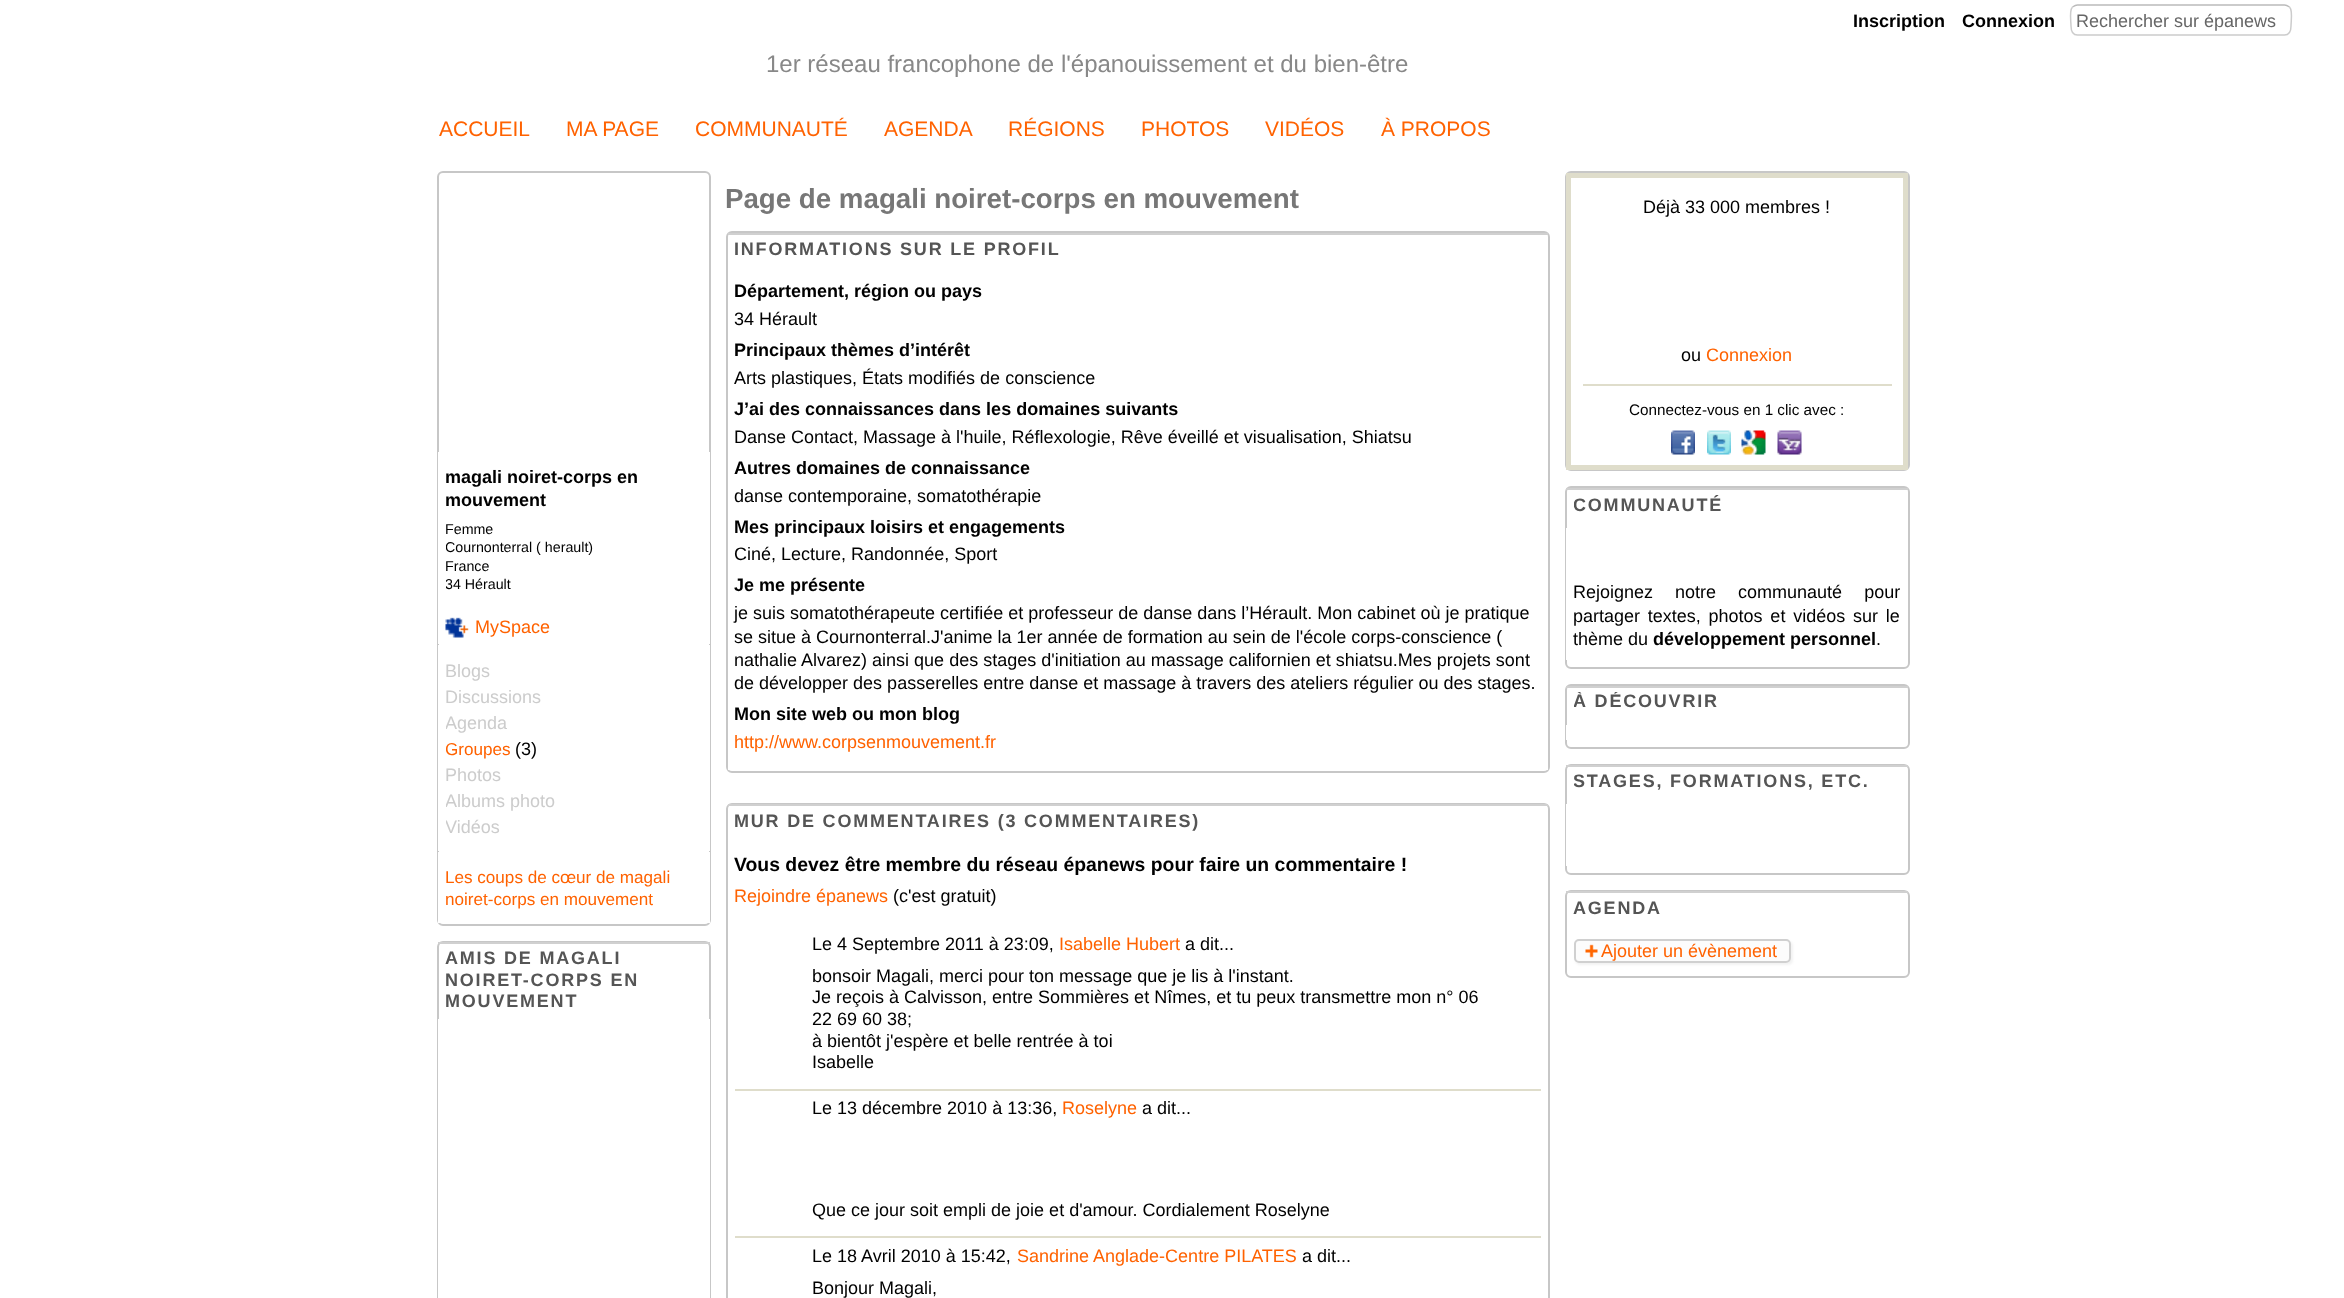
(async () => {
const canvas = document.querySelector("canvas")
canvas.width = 2344
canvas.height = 1298
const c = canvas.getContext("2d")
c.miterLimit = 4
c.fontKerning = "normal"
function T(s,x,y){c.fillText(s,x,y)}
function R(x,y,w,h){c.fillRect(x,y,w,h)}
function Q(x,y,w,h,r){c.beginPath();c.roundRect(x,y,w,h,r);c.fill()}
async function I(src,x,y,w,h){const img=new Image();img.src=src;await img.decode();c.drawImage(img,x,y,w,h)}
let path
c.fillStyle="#fff"
R(0,0,2344,1298)
c.font="bold 18px Liberation Sans"
c.fillStyle="#000"
T("Inscription",1853,27)
T("Connexion",1962,27)
path = new Path2D("M2072.5 7c1.5-1 3-2 5-2h207c2 0 3.5 1 5 2")
c.strokeStyle="#bbb"
c.lineWidth=1.5
c.stroke(path)
path = new Path2D("M2289.5 7c3.5 3.5 1.5 14 1.5 19c0 4.5-1 9-6.5 9h-207c-5.5 0-6.5-4.5-6.5-9c0-5-2-15.5 1.5-19")
c.strokeStyle="#ccc"
c.stroke(path)
c.font="18px Liberation Sans"
c.fillStyle="#666"
T("Rechercher sur épanews",2076,27)
c.font="24px Liberation Sans"
c.fillStyle="#888"
T("1er réseau francophone de l'épanouissement et du bien-être",766,72)
c.font="21px Liberation Sans"
c.fillStyle="#ff6200"
T("ACCUEIL",439,136)
T("MA PAGE",566,136)
T("COMMUNAUTÉ",695,136)
T("AGENDA",884,136)
T("RÉGIONS",1008,136)
T("PHOTOS",1141,136)
T("VIDÉOS",1265,136)
T("À PROPOS",1381,136)
c.beginPath()
c.roundRect(438,172,272,753,5)
c.strokeStyle="#c7c7c7"
c.lineWidth=2
c.stroke()
c.fillStyle="#fff"
R(438,452,272,192)
c.font="bold 18px Liberation Sans"
c.fillStyle="#000"
T("magali noiret-corps en",445,483)
T("mouvement",445,506)
c.save()
c.beginPath()
c.rect(446,467,256,135)
c.clip()
c.font="14.25px Liberation Sans"
T("Femme",445,534)
T("Cournonterral ( herault)",445,552)
T("France",445,571)
T("34 Hérault",445,589)
c.restore()
await I("1.png",445,617,24,21)
c.font="18px Liberation Sans"
c.fillStyle="#ff6200"
T("MySpace",475,633)
c.fillStyle="#fff"
R(438,645,272,206)
c.fillStyle="#ccc"
T("Blogs",445,677)
T("Discussions",445,703)
c.save()
c.beginPath()
c.rect(446,713,256,21)
c.clip()
T("Agenda",445,729)
c.restore()
c.save()
c.beginPath()
c.rect(446,738,256,23)
c.clip()
c.font="17.1px Liberation Sans"
c.fillStyle="#ff6200"
T("Groupes",445,755)
c.restore()
c.fillStyle="#000"
T("(3)",515,755)
c.fillStyle="#ccc"
T("Photos",445,781)
c.save()
c.beginPath()
c.rect(446,791,256,22)
c.clip()
T("Albums photo",445,807)
c.restore()
c.save()
c.beginPath()
c.rect(446,818,256,21)
c.clip()
T("Vidéos",445,833)
c.restore()
c.fillStyle="#fff"
R(438,852,272,71)
c.font="17.1px Liberation Sans"
c.fillStyle="#ff6200"
T("Les coups de cœur de magali",445,883)
c.save()
c.beginPath()
c.rect(446,867,256,44)
c.clip()
T("noiret-corps en mouvement",445,905)
c.restore()
c.beginPath()
c.roundRect(438,942,272,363,5)
c.stroke()
c.fillStyle="#d0d0d0"
R(438,942,272,2)
c.letterSpacing="1.8px"
c.font="bold 18px Liberation Sans"
c.fillStyle="#555"
T("AMIS DE MAGALI",445,964)
T("NOIRET-CORPS EN",445,986)
T("MOUVEMENT",445,1007)
c.fillStyle="#fff"
R(438,1019,272,279)
c.letterSpacing="0px"
c.font="bold 27.7px Liberation Sans"
c.fillStyle="#777"
T("Page de magali noiret-corps en mouvement",725,208)
c.beginPath()
c.roundRect(727,232,822,540,5)
c.stroke()
c.fillStyle="#d0d0d0"
R(728,233,820,2)
c.letterSpacing="1.8px"
c.font="bold 18px Liberation Sans"
c.fillStyle="#555"
T("INFORMATIONS SUR LE PROFIL",734,255)
c.fillStyle="#fff"
R(728,767,820,3)
c.letterSpacing="0px"
c.fillStyle="#000"
T("Département, région ou pays",734,297)
c.font="18px Liberation Sans"
T("34 Hérault",734,325)
c.font="bold 18px Liberation Sans"
T("Principaux thèmes d’intérêt",734,356)
c.font="18px Liberation Sans"
T("Arts plastiques, États modifiés de conscience",734,384)
c.font="bold 18px Liberation Sans"
T("J’ai des connaissances dans les domaines suivants",734,415)
c.font="18px Liberation Sans"
T("Danse Contact, Massage à l'huile, Réflexologie, Rêve éveillé et visualisation, Shiatsu",734,443)
c.font="bold 18px Liberation Sans"
T("Autres domaines de connaissance",734,474)
c.font="18px Liberation Sans"
T("danse contemporaine, somatothérapie",734,502)
c.font="bold 18px Liberation Sans"
T("Mes principaux loisirs et engagements",734,533)
c.font="18px Liberation Sans"
T("Ciné, Lecture, Randonnée, Sport",734,560)
c.font="bold 18px Liberation Sans"
T("Je me présente",734,591)
c.font="18px Liberation Sans"
T("je suis somatothérapeute certifiée et professeur de danse dans l’Hérault. Mon cabinet où je pratique",734,619)
T("se situe à Cournonterral.J'anime la 1er année de formation au sein de l'école corps-conscience (",734,643)
T("nathalie Alvarez) ainsi que des stages d'initiation au massage californien et shiatsu.Mes projets sont",734,666)
T("de développer des passerelles entre danse et massage à travers des ateliers régulier ou des stages.",734,689)
c.font="bold 18px Liberation Sans"
T("Mon site web ou mon blog",734,720)
c.font="18px Liberation Sans"
c.fillStyle="#ff6200"
T("http://www.corpsenmouvement.fr",734,748)
c.beginPath()
c.roundRect(727,804,822,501,5)
c.stroke()
c.fillStyle="#d0d0d0"
R(728,804,820,2)
c.letterSpacing="1.8px"
c.font="bold 18px Liberation Sans"
c.fillStyle="#555"
T("MUR DE COMMENTAIRES (3 COMMENTAIRES)",734,827)
c.letterSpacing="0px"
c.font="bold 19.4px Liberation Sans"
c.fillStyle="#000"
T("Vous devez être membre du réseau épanews pour faire un commentaire !",734,871)
c.font="18px Liberation Sans"
c.fillStyle="#ff6200"
T("Rejoindre épanews",734,902)
c.fillStyle="#000"
T("(c'est gratuit)",893,902)
c.fillStyle="#dfddcb"
R(735,1089,806,2)
c.fillStyle="#000"
T("Le 4 Septembre 2011 à 23:09,",812,950)
c.fillStyle="#ff6200"
T("Isabelle Hubert",1059,950)
c.fillStyle="#000"
T("a dit...",1185,950)
T("bonsoir Magali, merci pour ton message que je lis à l'instant.",812,982)
T("Je reçois à Calvisson, entre Sommières et Nîmes, et tu peux transmettre mon n° 06",812,1003)
T("22 69 60 38;",812,1025)
T("à bientôt j'espère et belle rentrée à toi",812,1047)
T("Isabelle",812,1068)
c.fillStyle="#dfddcb"
R(735,1236,806,2)
c.fillStyle="#000"
T("Le 13 décembre 2010 à 13:36,",812,1114)
c.fillStyle="#ff6200"
T("Roselyne",1062,1114)
c.fillStyle="#000"
T("a dit...",1142,1114)
T("Que ce jour soit empli de joie et d'amour. Cordialement Roselyne",812,1216)
T("Le 18 Avril 2010 à 15:42,",812,1262)
c.fillStyle="#ff6200"
T("Sandrine Anglade-Centre PILATES",1017,1262)
c.fillStyle="#000"
T("a dit...",1302,1262)
T("Bonjour Magali,",812,1294)
c.beginPath()
c.roundRect(1566,172,343,298,5)
c.stroke()
c.strokeStyle="#dfddcb"
c.lineWidth=5
c.strokeRect(1568.5,175.5,337,292)
T("Déjà 33 000 membres !",1643,213)
T("ou",1681,361)
c.fillStyle="#ff6200"
T("Connexion",1706,361)
c.fillStyle="#dfddcb"
R(1583,384,309,2)
c.font="15.25px Liberation Sans"
c.fillStyle="#000"
T("Connectez-vous en 1 clic avec :",1629,415)
await I("2.png",1671,430,24,25)
await I("3.png",1707,430,24,25)
await I("4.png",1741,430,25,25)
await I("5.png",1777,430,25,25)
c.beginPath()
c.roundRect(1566,487,343,181,5)
c.strokeStyle="#c7c7c7"
c.lineWidth=2
c.stroke()
c.fillStyle="#d0d0d0"
R(1566,488,342,2)
c.save()
c.beginPath()
c.rect(1574,494,150,22)
c.clip()
c.letterSpacing="1.8px"
c.font="bold 18px Liberation Sans"
c.fillStyle="#555"
T("COMMUNAUTÉ",1573,511)
c.restore()
c.fillStyle="#fff"
R(1566,528,1,132)
c.wordSpacing="17px"
c.font="18px Liberation Sans"
c.fillStyle="#000"
T("Rejoignez notre communauté pour",1573,598)
c.wordSpacing="2.75px"
T("partager textes, photos et vidéos sur le",1573,622)
c.wordSpacing="0px"
T("thème du",1573,645)
c.font="bold 18px Liberation Sans"
T("développement personnel",1653,645)
c.font="18px Liberation Sans"
T(".",1876,645)
c.beginPath()
c.roundRect(1566,685,343,63,5)
c.stroke()
c.fillStyle="#d0d0d0"
R(1566,686,342,2)
c.save()
c.beginPath()
c.rect(1574,692,145,21)
c.clip()
c.letterSpacing="1.8px"
c.font="bold 18px Liberation Sans"
c.fillStyle="#555"
T("À DÉCOUVRIR",1573,707)
c.restore()
c.fillStyle="#fff"
R(1566,725,1,15)
c.beginPath()
c.roundRect(1566,765,343,109,5)
c.stroke()
c.fillStyle="#d0d0d0"
R(1566,765,342,2)
c.save()
c.beginPath()
c.rect(1574,771,295,21)
c.clip()
c.letterSpacing="1.8px"
c.font="bold 18px Liberation Sans"
c.fillStyle="#555"
T("STAGES, FORMATIONS, ETC.",1573,787)
c.restore()
c.fillStyle="#fff"
R(1566,804,1,62)
c.beginPath()
c.roundRect(1566,891,343,86,5)
c.stroke()
c.fillStyle="#d0d0d0"
R(1566,891,342,2)
c.letterSpacing="1.8px"
c.font="bold 18px Liberation Sans"
c.fillStyle="#555"
T("AGENDA",1573,914)
c.fillStyle="#f2f2f2"
c.filter="blur(1px)"
c.beginPath()
c.roundRect(1575,941,218,24,5)
c.fill()
c.filter="none"
c.fillStyle="#fcfcfc"
Q(1574,939,217,24,5)
await I("6.png",1585,944,13,14)
c.beginPath()
c.roundRect(1575,940,215,22,4)
c.strokeStyle="#d0d0d0"
c.stroke()
c.letterSpacing="0px"
c.font="18px Liberation Sans"
c.fillStyle="#ff6200"
T("Ajouter un évènement",1601,957)
})()
